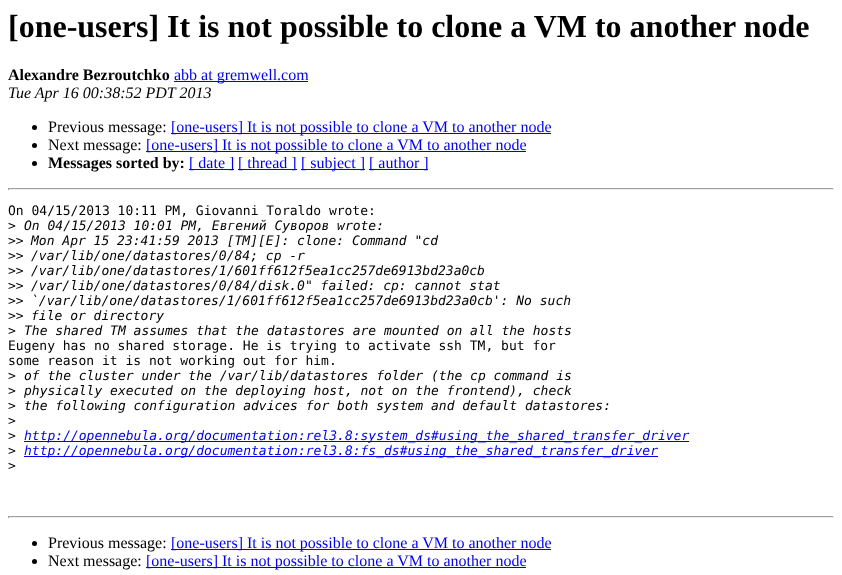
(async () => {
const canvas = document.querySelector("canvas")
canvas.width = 842
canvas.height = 575
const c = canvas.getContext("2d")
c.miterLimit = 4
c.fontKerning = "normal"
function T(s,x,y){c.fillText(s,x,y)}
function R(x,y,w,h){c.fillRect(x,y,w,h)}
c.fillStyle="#fff"
R(0,0,842,575)
c.font="bold 32px Liberation Serif"
c.fillStyle="#000"
T("[one-users] It is not possible to clone a VM to another node",8,37)
c.font="bold 16px Liberation Serif"
T("Alexandre Bezroutchko",8,80)
c.fillStyle="#00e"
R(174,81,134,1)
c.font="16px Liberation Serif"
T("abb at gremwell.com",174,80)
c.font="italic 16px Liberation Serif"
c.fillStyle="#000"
T("Tue Apr 16 00:38:52 PDT 2013",8,98)
c.beginPath()
c.arc(34.5,127.5,2.5,0,7)
c.fill()
c.font="16px Liberation Serif"
T("Previous message:",48,132)
c.fillStyle="#00e"
R(171,133,380,1)
T("[one-users] It is not possible to clone a VM to another node",171,132)
c.fillStyle="#000"
c.beginPath()
c.arc(34.5,145.5,2.5,0,7)
c.fill()
T("Next message:",48,150)
c.fillStyle="#00e"
R(146,151,380,1)
T("[one-users] It is not possible to clone a VM to another node",146,150)
c.fillStyle="#000"
c.beginPath()
c.arc(34.5,163.5,2.5,0,7)
c.fill()
c.font="bold 16px Liberation Serif"
T("Messages sorted by:",48,168)
c.fillStyle="#00e"
R(189,169,45,1)
c.font="16px Liberation Serif"
T("[ date ]",189,168)
R(238,169,59,1)
T("[ thread ]",238,168)
R(301,169,64,1)
T("[ subject ]",301,168)
R(369,169,59,1)
T("[ author ]",369,168)
c.fillStyle="#9f9f9f"
R(8,188,826,1)
c.fillStyle="#eee"
R(833,188,1,2)
R(8,189,826,1)
c.fillStyle="#9f9f9f"
R(8,188,1,2)
c.font="13px DejaVu Sans Mono"
c.fillStyle="#000"
T("On 04/15/2013 10:11 PM, Giovanni Toraldo wrote:",8,215)
T(">",8,230)
c.font="italic 13px DejaVu Sans Mono"
T("On 04/15/2013 10:01 PM, Евгений Суворов wrote:",24,230)
c.font="13px DejaVu Sans Mono"
T(">>",8,245)
c.font="italic 13px DejaVu Sans Mono"
T("Mon Apr 15 23:41:59 2013 [TM][E]: clone: Command \"cd",31,245)
c.font="13px DejaVu Sans Mono"
T(">>",8,260)
c.font="italic 13px DejaVu Sans Mono"
T("/var/lib/one/datastores/0/84; cp -r",31,260)
c.font="13px DejaVu Sans Mono"
T(">>",8,275)
c.font="italic 13px DejaVu Sans Mono"
T("/var/lib/one/datastores/1/601ff612f5ea1cc257de6913bd23a0cb",31,275)
c.font="13px DejaVu Sans Mono"
T(">>",8,290)
c.font="italic 13px DejaVu Sans Mono"
T("/var/lib/one/datastores/0/84/disk.0\" failed: cp: cannot stat",31,290)
c.font="13px DejaVu Sans Mono"
T(">>",8,305)
c.font="italic 13px DejaVu Sans Mono"
T("`/var/lib/one/datastores/1/601ff612f5ea1cc257de6913bd23a0cb': No such",31,305)
c.font="13px DejaVu Sans Mono"
T(">>",8,320)
c.font="italic 13px DejaVu Sans Mono"
T("file or directory",31,320)
c.font="13px DejaVu Sans Mono"
T(">",8,335)
c.font="italic 13px DejaVu Sans Mono"
T("The shared TM assumes that the datastores are mounted on all the hosts",24,335)
c.font="13px DejaVu Sans Mono"
T("Eugeny has no shared storage. He is trying to activate ssh TM, but for",8,350)
T("some reason it is not working out for him.",8,365)
T(">",8,380)
c.font="italic 13px DejaVu Sans Mono"
T("of the cluster under the /var/lib/datastores folder (the cp command is",24,380)
c.font="13px DejaVu Sans Mono"
T(">",8,395)
c.font="italic 13px DejaVu Sans Mono"
T("physically executed on the deploying host, not on the frontend), check",24,395)
c.font="13px DejaVu Sans Mono"
T(">",8,410)
c.font="italic 13px DejaVu Sans Mono"
T("the following configuration advices for both system and default datastores:",24,410)
c.font="13px DejaVu Sans Mono"
T(">",8,425)
T(">",8,440)
c.fillStyle="#00e"
R(24,441,665,1)
c.font="italic 13px DejaVu Sans Mono"
T("http://opennebula.org/documentation:rel3.8:system_ds#using_the_shared_transfer_driver",24,440)
c.font="13px DejaVu Sans Mono"
c.fillStyle="#000"
T(">",8,455)
c.fillStyle="#00e"
R(24,456,634,1)
c.font="italic 13px DejaVu Sans Mono"
T("http://opennebula.org/documentation:rel3.8:fs_ds#using_the_shared_transfer_driver",24,455)
c.font="13px DejaVu Sans Mono"
c.fillStyle="#000"
T(">",8,470)
c.fillStyle="#9f9f9f"
R(8,516,826,1)
c.fillStyle="#eee"
R(833,516,1,2)
R(8,517,826,1)
c.fillStyle="#9f9f9f"
R(8,516,1,2)
c.fillStyle="#000"
c.beginPath()
c.arc(34.5,543.5,2.5,0,7)
c.fill()
c.font="16px Liberation Serif"
T("Previous message:",48,548)
c.fillStyle="#00e"
R(171,549,380,1)
T("[one-users] It is not possible to clone a VM to another node",171,548)
c.fillStyle="#000"
c.beginPath()
c.arc(34.5,561.5,2.5,0,7)
c.fill()
T("Next message:",48,566)
c.fillStyle="#00e"
R(146,567,380,1)
T("[one-users] It is not possible to clone a VM to another node",146,566)
})()
